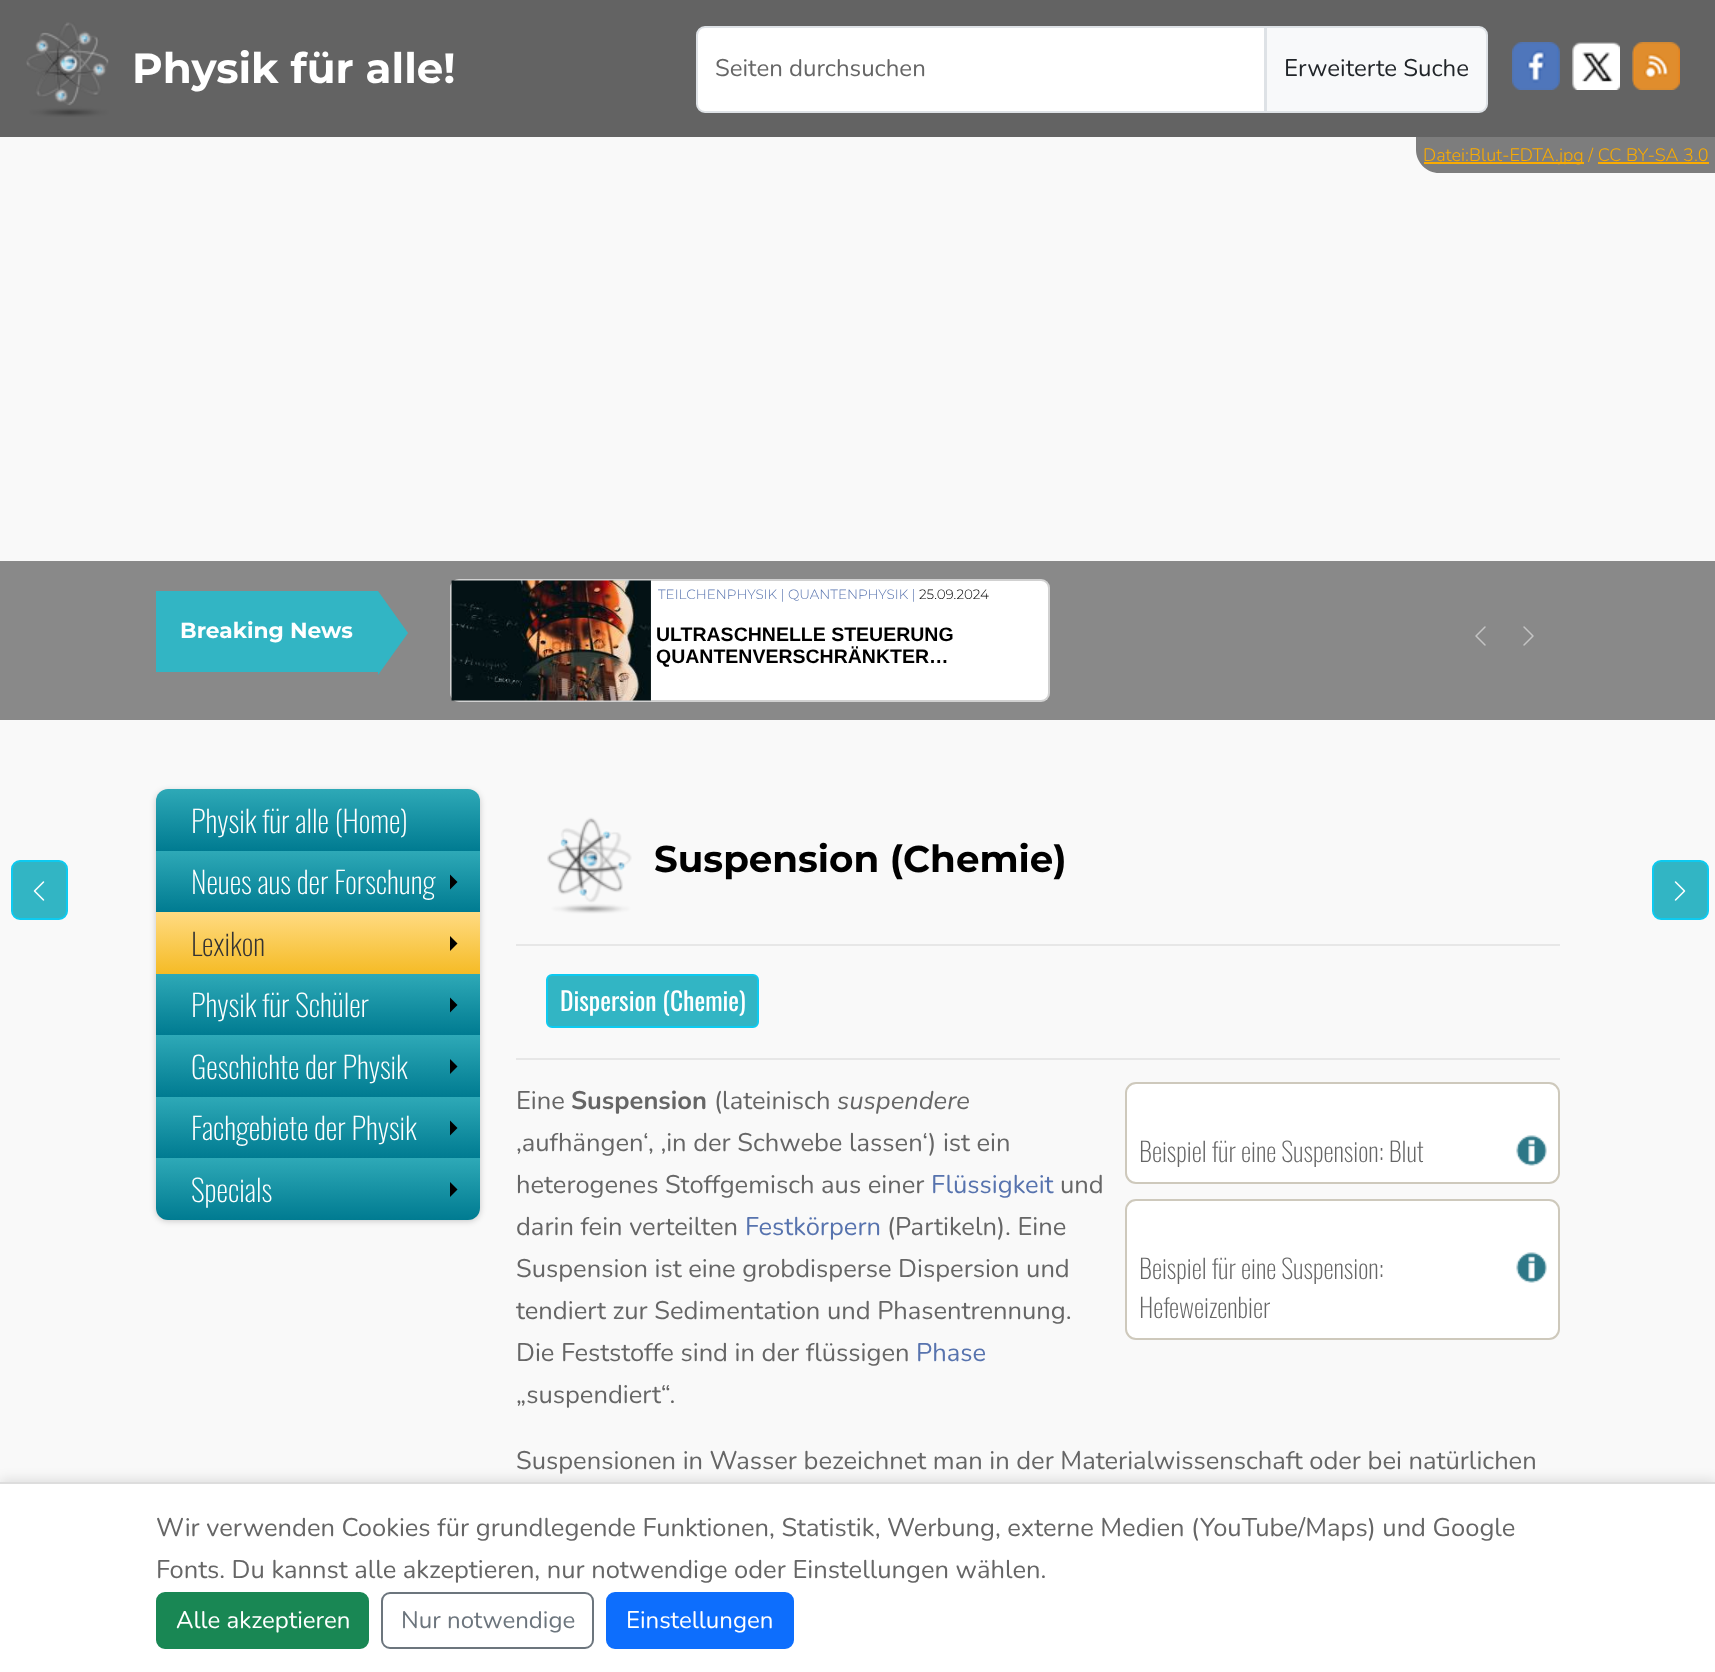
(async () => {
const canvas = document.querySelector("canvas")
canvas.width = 1715
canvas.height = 1672
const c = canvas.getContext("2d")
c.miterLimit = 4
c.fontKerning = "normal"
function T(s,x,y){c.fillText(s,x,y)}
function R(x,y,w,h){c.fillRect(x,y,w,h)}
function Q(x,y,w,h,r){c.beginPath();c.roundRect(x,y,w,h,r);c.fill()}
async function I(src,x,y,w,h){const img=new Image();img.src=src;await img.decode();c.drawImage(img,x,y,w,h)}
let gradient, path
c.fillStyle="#f9f9f9"
R(0,0,1715,1672)
c.fillStyle="#636363"
R(0,0,1715,137)
await I("1.png",26,22,83,95)
c.font="bold 42px Montserrat"
c.fillStyle="#fff"
T("Physik für alle!",132,83)
c.beginPath()
c.roundRect(697,27,568,85,[8,0,0,8])
c.fill()
c.strokeStyle="#dee2e6"
c.lineWidth=2
c.stroke()
c.font="24px Nunito"
c.fillStyle="#666"
T("Seiten durchsuchen",715,76)
c.fillStyle="#f8f9fa"
c.beginPath()
c.roundRect(1266,27,221,85,[0,8,8,0])
c.fill()
c.stroke()
c.fillStyle="#212529"
T("Erweiterte Suche",1284,76)
await I("2.png",1512,42,48,48)
await I("3.png",1572,42,48,48)
await I("4.png",1632,42,48,48)
c.fillStyle="#7d7d7d"
path = new Path2D("M1416 137h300v36h-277c-12.5 0-23-10.5-23-23z")
c.fill(path)
c.fillStyle="#faab01"
R(1424,162,160,2)
c.font="300 18px Nunito"
T("Datei:Blut-EDTA.jpg / CC BY-SA 3.0",1423,161)
R(1598,162,111,2)
c.fillStyle="#898989"
R(0,561,1715,159)
c.fillStyle="#32b5c4"
R(156,591,222,81)
c.font="bold 21.75px Montserrat"
c.fillStyle="#fff"
T("Breaking News",180,638)
c.fillStyle="#32b5c4"
path = new Path2D("M378 675v-84l30 42z")
c.fill(path)
c.fillStyle="#fff"
Q(450,579,600,123,9)
c.beginPath()
c.roundRect(451,580,598,121,8)
c.strokeStyle="#0000002e"
c.stroke()
await I("5.png",451,580,200,121)
c.font="300 13.5px Montserrat"
c.fillStyle="#5773ae"
T("TEILCHENPHYSIK | QUANTENPHYSIK |",658,599)
c.fillStyle="#000"
T("25.09.2024",919,599)
c.font="bold 19.5px Liberation Sans"
T("ULTRASCHNELLE STEUERUNG",656,641)
T("QUANTENVERSCHRÄNKTER…",656,663)
await I("6.png",1475,626,11,20)
await I("7.png",1523,626,11,20)
c.fillStyle="#00000033"
c.filter="blur(3px)"
c.beginPath()
c.roundRect(156,791,324,430,12)
c.fill()
c.filter="none"
gradient = c.createLinearGradient(318,789,318,851)
gradient.addColorStop(0,"#2ea9b7")
gradient.addColorStop(1,"#007b91")
c.fillStyle = gradient
c.beginPath()
c.roundRect(156,789,324,62,[12,12,0,0])
c.fill()
c.font="200 30px Oswald"
c.fillStyle="#fff"
T("Physik für alle (Home)",191,833)
gradient = c.createLinearGradient(318,851,318,912)
gradient.addColorStop(0,"#2ea9b7")
gradient.addColorStop(1,"#007b91")
c.fillStyle = gradient
R(156,851,324,61)
c.fillStyle="#fff"
T("Neues aus der Forschung",191,894)
c.fillStyle="#000"
path = new Path2D("M450 889.5v-15l7.5 7.5z")
c.fill(path)
gradient = c.createLinearGradient(318,974,318,912)
gradient.addColorStop(0,"#f5bb25")
gradient.addColorStop(1,"#ffdb82")
c.fillStyle = gradient
R(156,912,324,62)
c.fillStyle="#333"
T("Lexikon",191,956)
c.fillStyle="#000"
path = new Path2D("M450 951v-15l7.5 7.5z")
c.fill(path)
gradient = c.createLinearGradient(318,974,318,1035)
gradient.addColorStop(0,"#2ea9b7")
gradient.addColorStop(1,"#007b91")
c.fillStyle = gradient
R(156,974,324,61)
c.fillStyle="#fff"
T("Physik für Schüler",191,1017)
c.fillStyle="#000"
path = new Path2D("M450 1012.5v-15l7.5 7.5z")
c.fill(path)
gradient = c.createLinearGradient(318,1035,318,1097)
gradient.addColorStop(0,"#2ea9b7")
gradient.addColorStop(1,"#007b91")
c.fillStyle = gradient
R(156,1035,324,62)
c.fillStyle="#fff"
T("Geschichte der Physik",191,1079)
c.fillStyle="#000"
path = new Path2D("M450 1074v-15l7.5 7.5z")
c.fill(path)
gradient = c.createLinearGradient(318,1097,318,1158)
gradient.addColorStop(0,"#2ea9b7")
gradient.addColorStop(1,"#007b91")
c.fillStyle = gradient
R(156,1097,324,61)
c.fillStyle="#fff"
T("Fachgebiete der Physik",191,1140)
c.fillStyle="#000"
path = new Path2D("M450 1135.5v-15l7.5 7.5z")
c.fill(path)
gradient = c.createLinearGradient(318,1158,318,1220)
gradient.addColorStop(0,"#2ea9b7")
gradient.addColorStop(1,"#007b91")
c.fillStyle = gradient
c.beginPath()
c.roundRect(156,1158,324,62,[0,0,12,12])
c.fill()
c.fillStyle="#fff"
T("Specials",191,1202)
c.fillStyle="#000"
path = new Path2D("M450 1197v-15l7.5 7.5z")
c.fill(path)
await I("8.png",547,817,85,97)
c.font="bold 37.25px Montserrat"
T("Suspension (Chemie)",654,872)
c.fillStyle="#e7e7e7"
R(516,944,1044,2)
R(516,1058,1044,2)
c.fillStyle="#32b5c4"
c.beginPath()
c.roundRect(547,975,211,52,5)
c.fill()
c.strokeStyle="#0dcaf0"
c.stroke()
c.font="25.5px Oswald"
c.fillStyle="#fff"
T("Dispersion (Chemie)",560,1011)
c.font="25.5px Nunito"
c.fillStyle="#666"
T("Eine",516,1109)
c.font="bold 25.5px Nunito"
T("Suspension",571,1109)
c.font="25.5px Nunito"
T("(lateinisch",714,1109)
c.font="italic 25.5px Nunito"
T("suspendere",837,1109)
c.font="25.5px Nunito"
T("‚aufhängen‘",516,1151)
T(", ‚in der Schwebe lassen‘) ist ein",648,1151)
T("heterogenes Stoffgemisch aus einer",516,1193)
c.fillStyle="#5773ae"
T("Flüssigkeit",931,1193)
c.fillStyle="#666"
T("und",1060,1193)
T("darin fein verteilten",516,1235)
c.fillStyle="#5773ae"
T("Festkörpern",745,1235)
c.fillStyle="#666"
T("(Partikeln). Eine",887,1235)
T("Suspension ist eine grobdisperse Dispersion und",516,1277)
T("tendiert zur Sedimentation und Phasentrennung.",516,1319)
T("Die Feststoffe sind in der flüssigen",516,1361)
c.fillStyle="#5773ae"
T("Phase",916,1361)
c.fillStyle="#666"
T("„suspendiert“.",516,1403)
c.fillStyle="#fff"
c.beginPath()
c.roundRect(1126,1083,433,100,10)
c.fill()
c.strokeStyle="#cec9bc"
c.stroke()
c.font="200 26.4px Oswald"
c.fillStyle="#666"
T("Beispiel für eine Suspension: Blut",1139,1162)
await I("9.png",1516,1135,31,31)
c.fillStyle="#fff"
c.beginPath()
c.roundRect(1126,1200,433,139,10)
c.fill()
c.stroke()
c.fillStyle="#666"
T("Beispiel für eine Suspension:",1139,1279)
await I("9.png",1516,1252,31,31)
T("Hefeweizenbier",1139,1318)
c.font="25.5px Nunito"
T("Suspensionen in Wasser bezeichnet man in der Materialwissenschaft oder bei natürlichen",516,1469)
c.fillStyle="#32b5c4"
c.beginPath()
c.roundRect(12,861,55,58,8)
c.fill()
c.strokeStyle="#0dcaf0"
c.stroke()
await I("10.png",33,881,12,20)
c.beginPath()
c.roundRect(1653,861,55,58,8)
c.fill()
c.stroke()
await I("11.png",1674,881,12,20)
c.fillStyle="#0000001a"
c.filter="blur(6px)"
c.beginPath()
c.rect(0,1479,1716,191)
c.fill()
c.filter="none"
c.fillStyle="#fff"
R(0,1484,1715,188)
c.fillStyle="#ddd"
R(0,1482,1715,2)
c.fillStyle="#666"
T("Wir verwenden Cookies für grundlegende Funktionen, Statistik, Werbung, externe Medien (YouTube/Maps) und Google",156,1536)
T("Fonts. Du kannst alle akzeptieren, nur notwendige oder Einstellungen wählen.",156,1578)
c.fillStyle="#198754"
c.beginPath()
c.roundRect(157,1593,211,55,8)
c.fill()
c.strokeStyle="#198754"
c.stroke()
c.font="24px Nunito"
c.fillStyle="#fff"
T("Alle akzeptieren",176,1628)
c.beginPath()
c.roundRect(382,1593,211,55,8)
c.strokeStyle="#6c757d"
c.stroke()
c.fillStyle="#6c757d"
T("Nur notwendige",401,1628)
c.fillStyle="#0d6efd"
c.beginPath()
c.roundRect(607,1593,186,55,8)
c.fill()
c.strokeStyle="#0d6efd"
c.stroke()
c.fillStyle="#fff"
T("Einstellungen",626,1628)
})()
